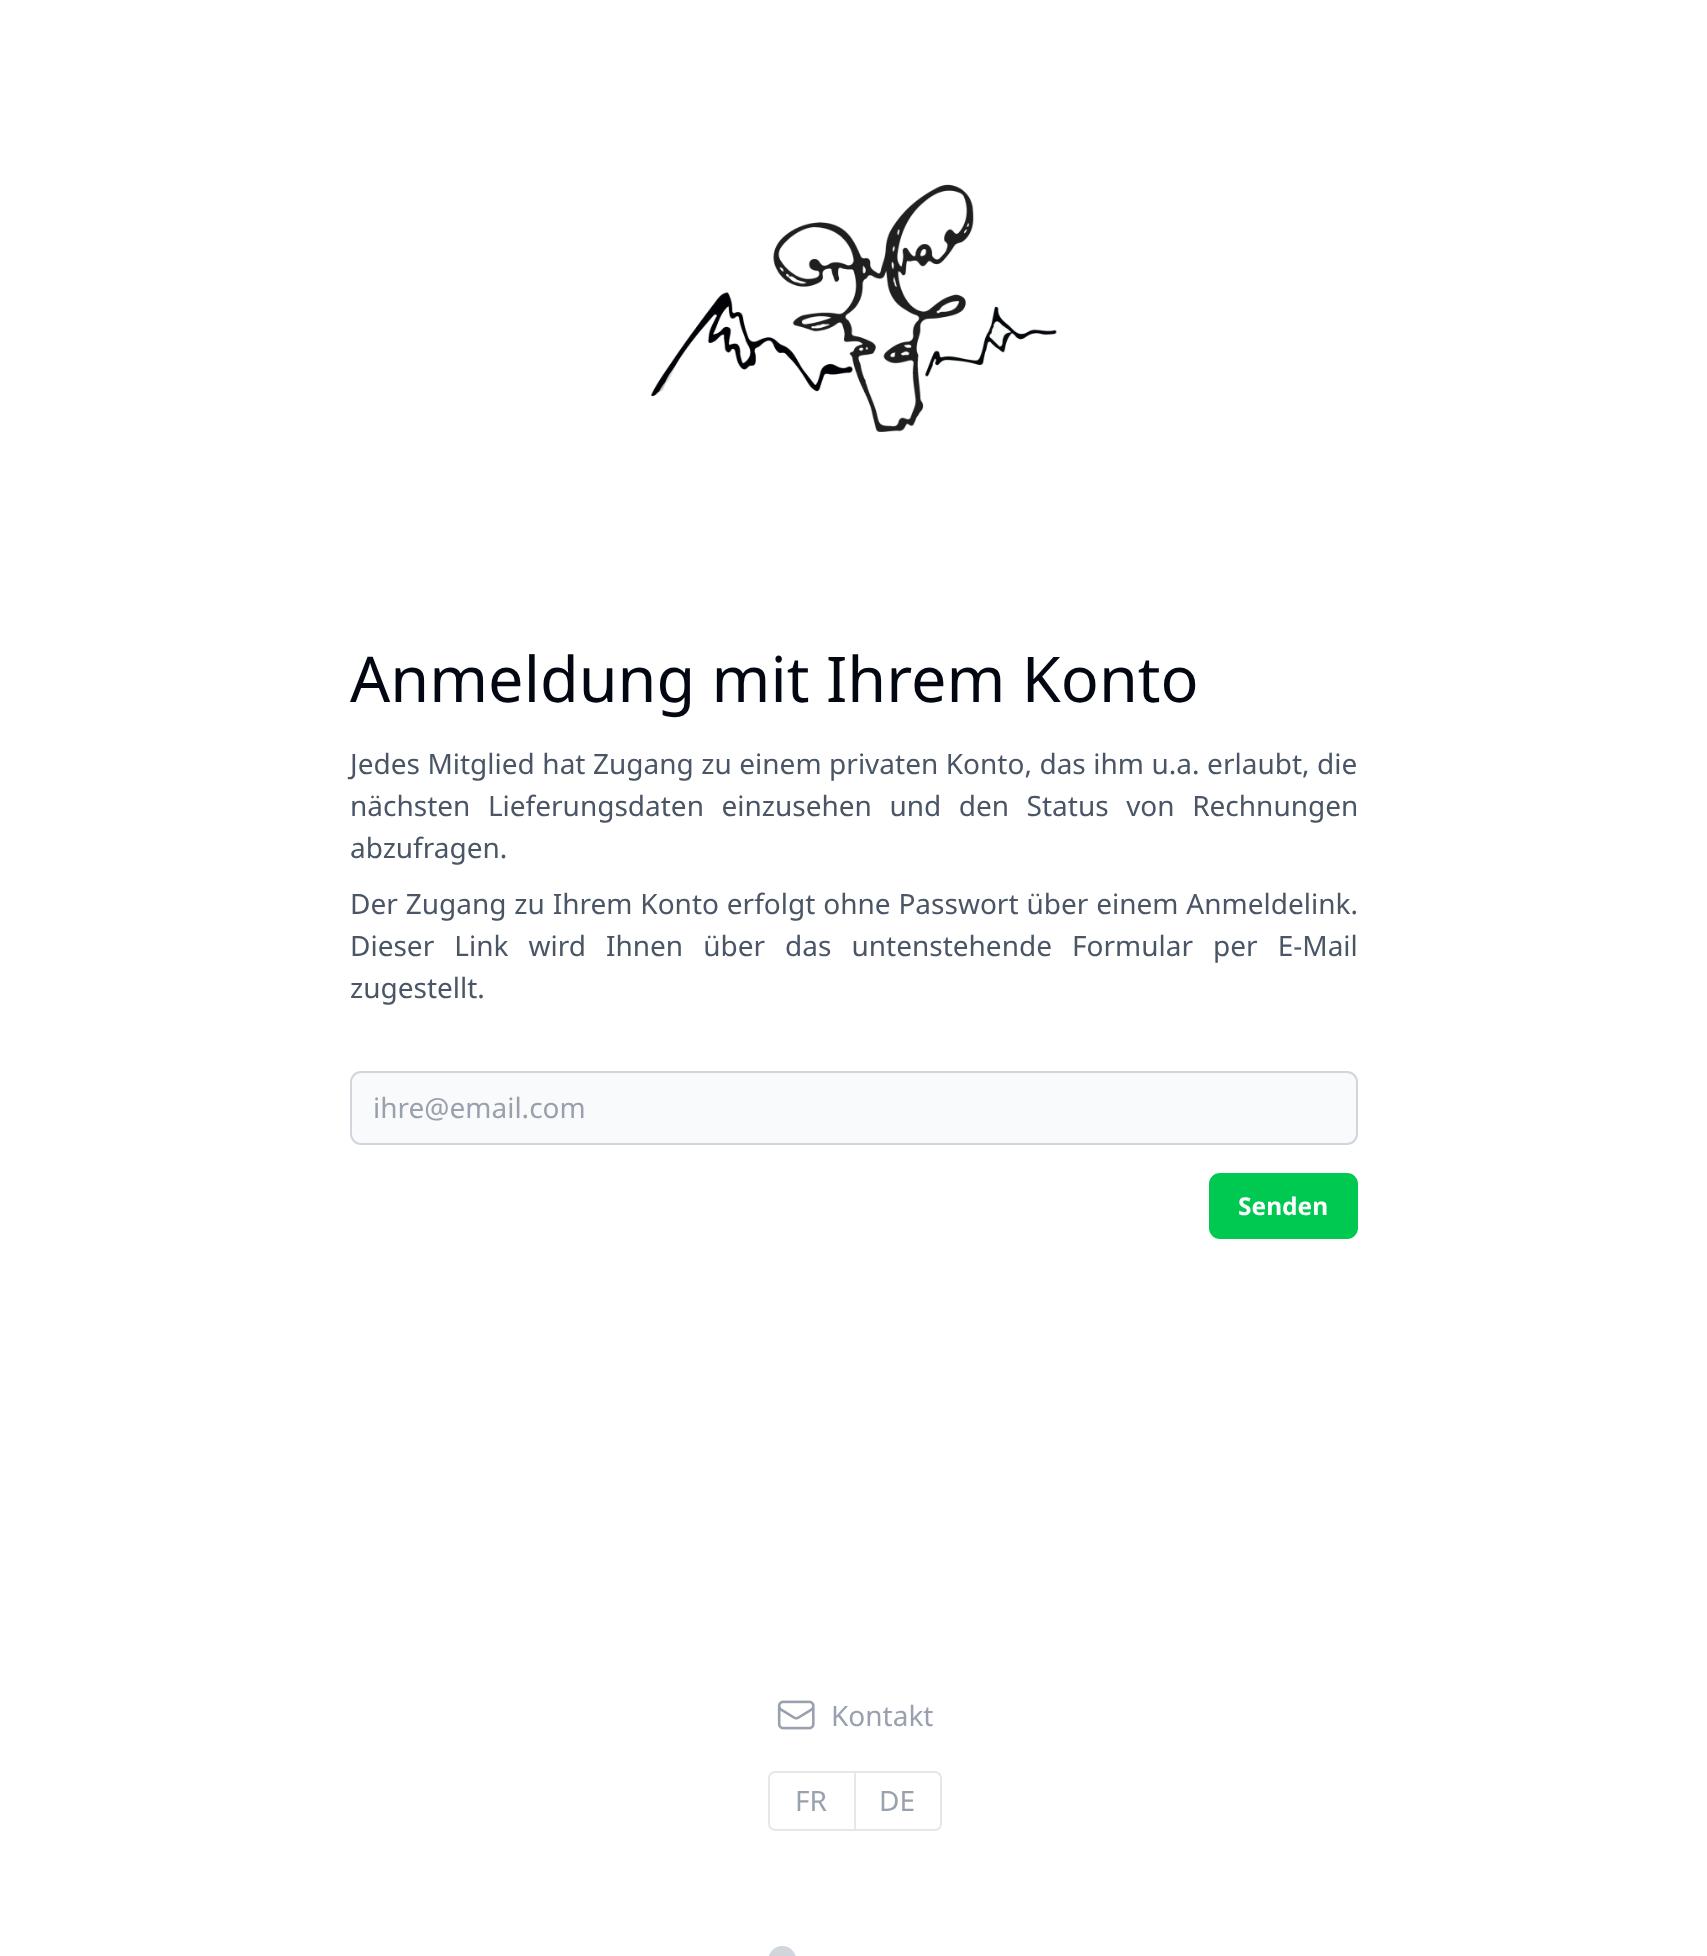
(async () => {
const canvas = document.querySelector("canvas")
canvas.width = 1707
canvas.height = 1956
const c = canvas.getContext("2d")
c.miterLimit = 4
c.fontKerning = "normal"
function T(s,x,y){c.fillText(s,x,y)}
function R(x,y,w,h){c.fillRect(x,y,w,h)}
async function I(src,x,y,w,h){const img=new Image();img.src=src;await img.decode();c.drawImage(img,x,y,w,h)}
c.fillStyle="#fff"
R(0,0,1707,1956)
await I("1.png",650,184,407,248)
c.font="63px Noto Sans"
c.fillStyle="#030712"
T("Anmeldung mit Ihrem Konto",350,702)
c.wordSpacing="0.25px"
c.font="28px Noto Sans"
c.fillStyle="#4a5565"
T("Jedes Mitglied hat Zugang zu einem privaten Konto, das ihm u.a. erlaubt, die",350,774)
c.wordSpacing="10.25px"
T("nächsten Lieferungsdaten einzusehen und den Status von Rechnungen",350,816)
c.wordSpacing="0px"
T("abzufragen.",350,858)
c.wordSpacing="0.6px"
T("Der Zugang zu Ihrem Konto erfolgt ohne Passwort über einem Anmeldelink.",350,914)
c.wordSpacing="12.75px"
T("Dieser Link wird Ihnen über das untenstehende Formular per E-Mail",350,956)
c.wordSpacing="0px"
T("zugestellt.",350,998)
c.fillStyle="#f9fafb"
c.beginPath()
c.roundRect(351,1072,1006,72,10)
c.fill()
c.strokeStyle="#d1d5dc"
c.lineWidth=2
c.stroke()
c.fillStyle="#99a1af"
T("ihre@email.com",373,1118)
c.fillStyle="#00c951"
c.beginPath()
c.roundRect(1210,1174,147,64,10)
c.fill()
c.strokeStyle="#00c951"
c.stroke()
c.font="bold 24.5px Noto Sans"
c.fillStyle="#fff"
T("Senden",1238,1215)
await I("2.png",777,1700,38,30)
c.font="28px Noto Sans"
c.fillStyle="#99a1af"
T("Kontakt",831,1726)
c.beginPath()
c.roundRect(769,1772,172,58,6)
c.strokeStyle="#e5e7eb"
c.stroke()
c.fillStyle="#e5e7eb"
R(854,1773,2,56)
c.fillStyle="#99a1af"
T("FR",795,1811)
T("DE",879,1811)
await I("3.png",769,1946,27,10)
})()
